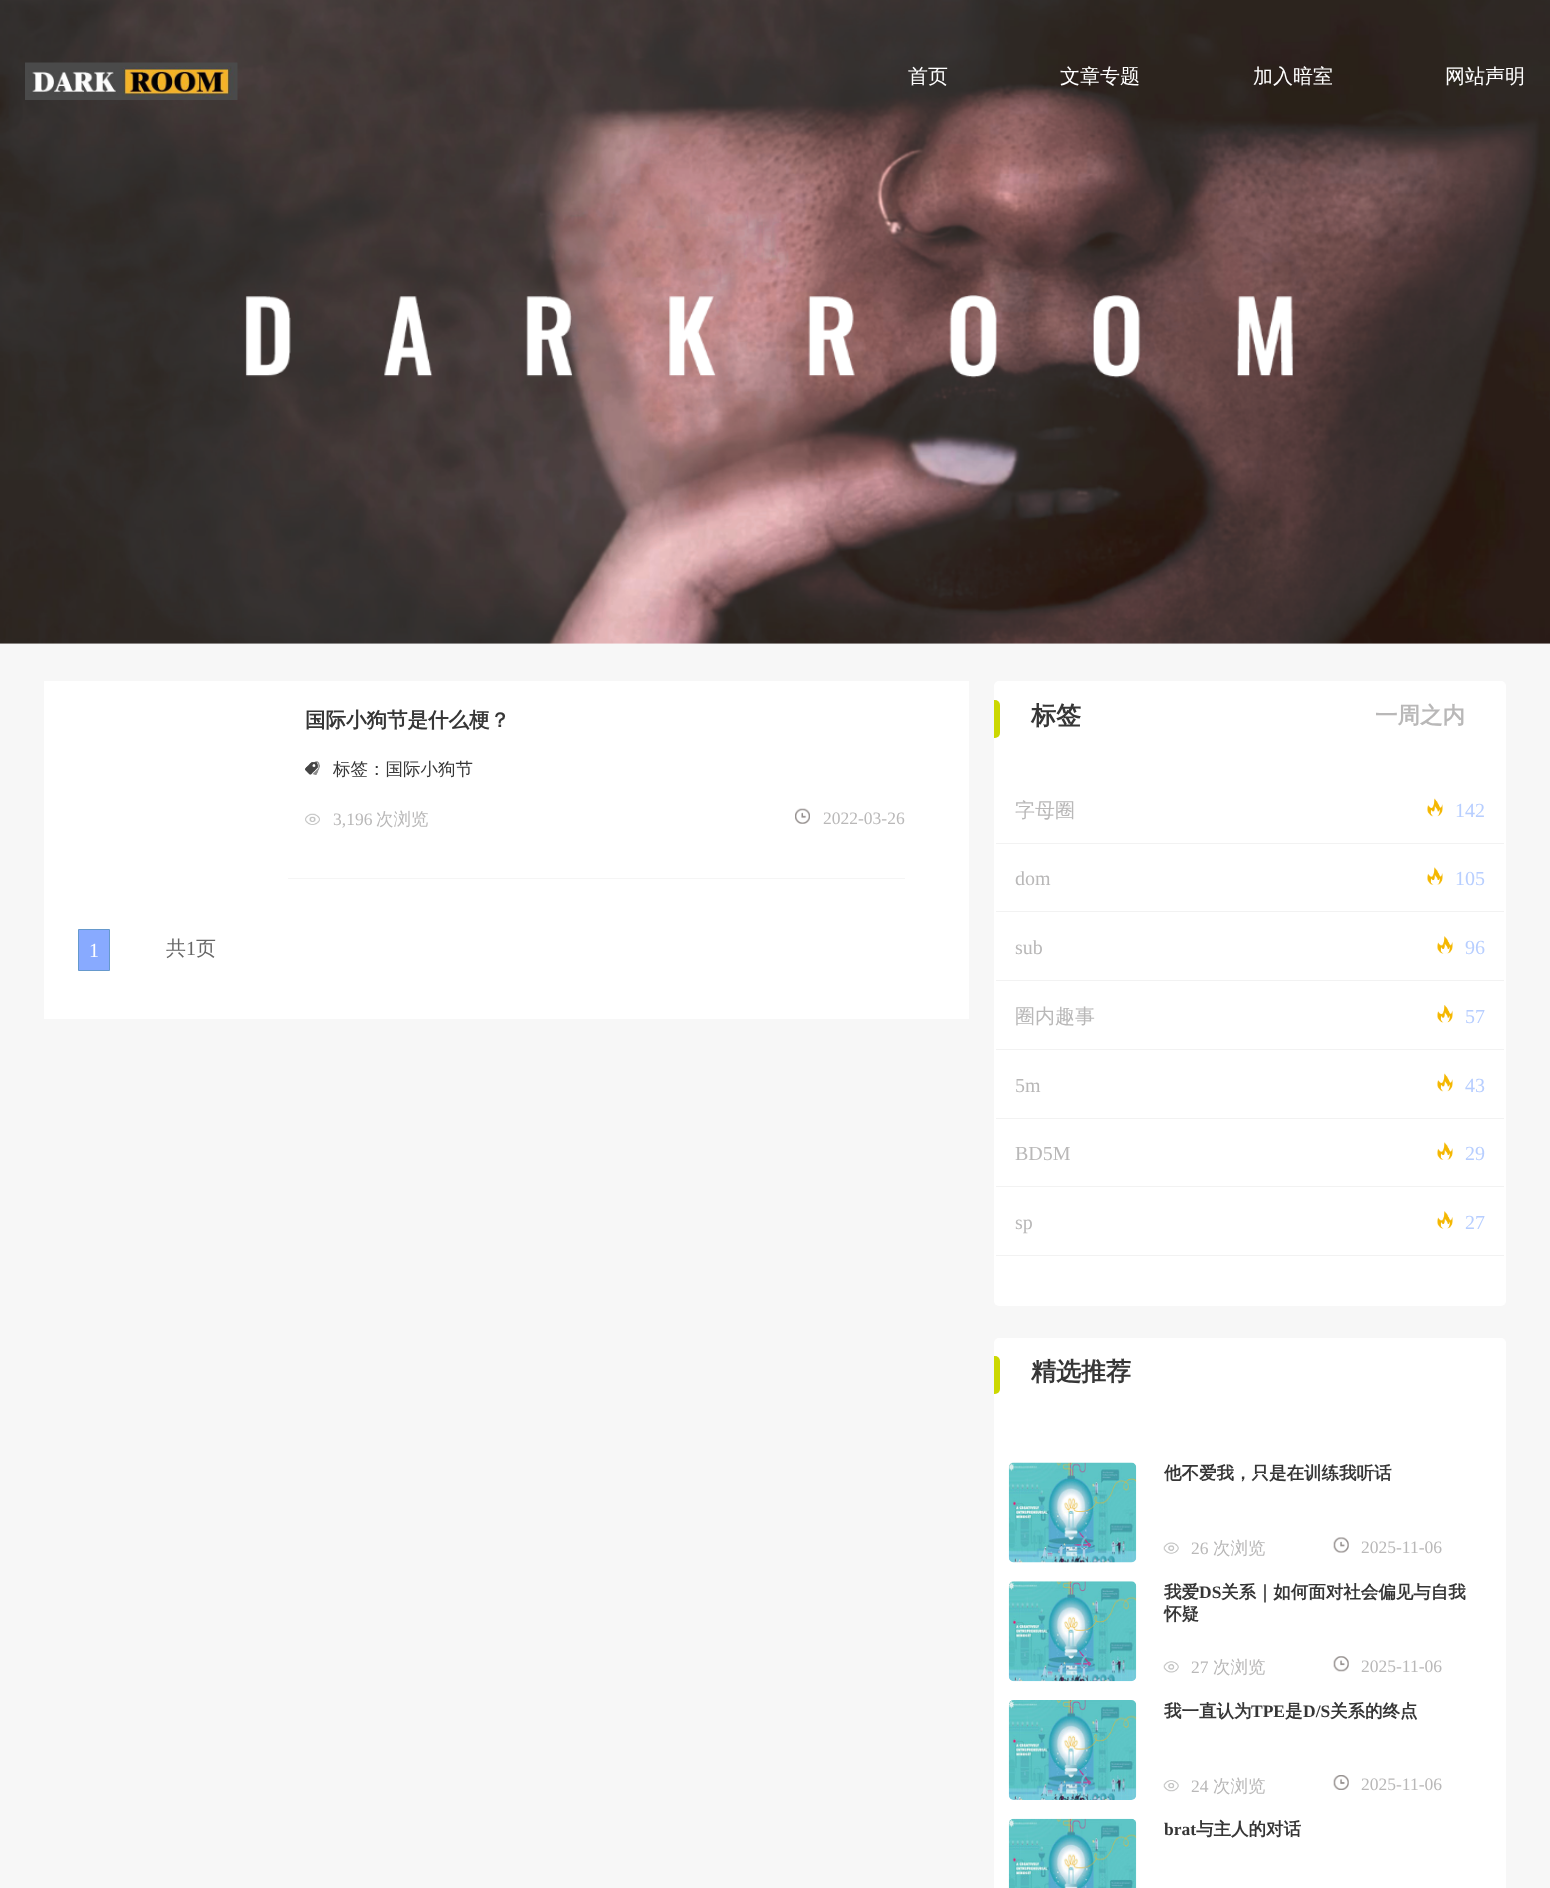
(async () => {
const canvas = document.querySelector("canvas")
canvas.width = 1550
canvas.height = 1888
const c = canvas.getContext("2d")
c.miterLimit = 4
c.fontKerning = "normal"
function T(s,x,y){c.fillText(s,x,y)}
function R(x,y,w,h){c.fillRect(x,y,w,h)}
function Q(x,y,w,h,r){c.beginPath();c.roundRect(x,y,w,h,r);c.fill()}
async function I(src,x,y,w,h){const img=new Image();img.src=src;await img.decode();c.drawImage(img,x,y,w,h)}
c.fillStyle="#f7f7f7"
R(0,0,1550,1888)
await I("1.png",0,0,1550,644)
await I("2.png",25,62,213,38)
c.font="500 20px WenQuanYi Zen Hei"
c.fillStyle="#fff"
T("首页",908,83)
T("文章专题",1060,83)
T("加入暗室",1253,83)
T("网站声明",1445,83)
R(44,681,925,338)
c.fillStyle="#f5f5f5"
R(288,878,617,1)
c.font="bold 20.5px WenQuanYi Zen Hei"
c.fillStyle="#363636"
T("国际小狗节是什么梗？",305,727)
await I("3.png",305,761,15,14)
c.font="500 17.5px WenQuanYi Zen Hei"
T("标签：国际小狗节",333,775)
await I("4.png",305,813,15,12)
c.font="17.5px Liberation Serif"
c.fillStyle="#b9b8b8"
T("3,196",333,825)
c.font="500 17.5px WenQuanYi Zen Hei"
T("次浏览",376,825)
await I("5.png",795,808,15,16)
c.font="17.5px Liberation Serif"
T("2022-03-26",823,824)
c.fillStyle="#8af"
c.beginPath()
c.rect(78.5,929.5,31,41)
c.fill()
c.strokeStyle="#69c"
c.stroke()
c.font="20px Liberation Serif"
c.fillStyle="#fff"
T("1",89,957)
c.font="500 20px WenQuanYi Zen Hei"
c.fillStyle="#666"
T("共",166,955)
c.font="20px Liberation Serif"
T("1",186,955)
c.font="500 20px WenQuanYi Zen Hei"
T("页",196,955)
c.fillStyle="#fff"
Q(994,681,512,625,5)
c.fillStyle="#ccd800"
c.beginPath()
c.roundRect(994,700,6,38,[0,5,5,0])
c.fill()
c.font="bold 25px WenQuanYi Zen Hei"
c.fillStyle="#363636"
T("标签",1031,724)
c.font="bold 22.5px WenQuanYi Zen Hei"
c.fillStyle="#b9b8b8"
T("一周之内",1375,723)
c.fillStyle="#f2f2f2"
R(996,843,508,1)
c.font="500 20px WenQuanYi Zen Hei"
c.fillStyle="#b9b8b8"
T("字母圈",1015,817)
await I("6.png",1427,798,16,19)
c.font="20px Liberation Serif"
c.fillStyle="#b7ceff"
T("142",1455,817)
c.fillStyle="#f2f2f2"
R(996,911,508,1)
c.fillStyle="#b9b8b8"
T("dom",1015,885)
await I("7.png",1427,867,16,18)
c.fillStyle="#b7ceff"
T("105",1455,885)
c.fillStyle="#f2f2f2"
R(996,980,508,1)
c.fillStyle="#b9b8b8"
T("sub",1015,954)
await I("8.png",1437,936,16,18)
c.fillStyle="#b7ceff"
T("96",1465,954)
c.fillStyle="#f2f2f2"
R(996,1049,508,1)
c.font="500 20px WenQuanYi Zen Hei"
c.fillStyle="#b9b8b8"
T("圈内趣事",1015,1023)
await I("9.png",1437,1005,16,18)
c.font="20px Liberation Serif"
c.fillStyle="#b7ceff"
T("57",1465,1023)
c.fillStyle="#f2f2f2"
R(996,1118,508,1)
c.fillStyle="#b9b8b8"
T("5m",1015,1092)
await I("6.png",1437,1073,16,19)
c.fillStyle="#b7ceff"
T("43",1465,1092)
c.fillStyle="#f2f2f2"
R(996,1186,508,1)
c.fillStyle="#b9b8b8"
T("BD5M",1015,1160)
await I("7.png",1437,1142,16,18)
c.fillStyle="#b7ceff"
T("29",1465,1160)
c.fillStyle="#f2f2f2"
R(996,1255,508,1)
c.fillStyle="#b9b8b8"
T("sp",1015,1229)
await I("10.png",1437,1211,16,18)
c.fillStyle="#b7ceff"
T("27",1465,1229)
c.fillStyle="#fff"
Q(994,1338,512,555,5)
c.fillStyle="#ccd800"
c.beginPath()
c.roundRect(994,1356,6,38,[0,5,5,0])
c.fill()
c.font="bold 25px WenQuanYi Zen Hei"
c.fillStyle="#363636"
T("精选推荐",1031,1380)
await I("11.png",1008,1462,129,101)
c.font="bold 17.5px WenQuanYi Zen Hei"
T("他不爱我，只是在训练我听话",1164,1479)
await I("12.png",1163,1542,16,12)
c.font="17.5px Liberation Serif"
c.fillStyle="#b9b8b8"
T("26",1191,1554)
c.font="500 17.5px WenQuanYi Zen Hei"
T("次浏览",1213,1554)
await I("13.png",1333,1537,16,16)
c.font="17.5px Liberation Serif"
T("2025-11-06",1361,1553)
await I("14.png",1008,1581,129,101)
c.font="bold 17.5px WenQuanYi Zen Hei"
c.fillStyle="#363636"
T("我爱",1164,1598)
c.font="bold 17.5px Liberation Serif"
T("DS",1199,1598)
c.font="bold 17.5px WenQuanYi Zen Hei"
T("关系｜如何面对社会偏见与自我",1221,1598)
T("怀疑",1164,1620)
await I("15.png",1163,1661,16,12)
c.font="17.5px Liberation Serif"
c.fillStyle="#b9b8b8"
T("27",1191,1673)
c.font="500 17.5px WenQuanYi Zen Hei"
T("次浏览",1213,1673)
await I("16.png",1333,1656,16,16)
c.font="17.5px Liberation Serif"
T("2025-11-06",1361,1672)
await I("17.png",1008,1700,129,100)
c.font="bold 17.5px WenQuanYi Zen Hei"
c.fillStyle="#363636"
T("我一直认为",1164,1717)
c.font="bold 17.5px Liberation Serif"
T("TPE",1251,1717)
c.font="bold 17.5px WenQuanYi Zen Hei"
T("是",1285,1717)
c.font="bold 17.5px Liberation Serif"
T("D/S",1303,1717)
c.font="bold 17.5px WenQuanYi Zen Hei"
T("关系的终点",1330,1717)
await I("18.png",1163,1780,16,12)
c.font="17.5px Liberation Serif"
c.fillStyle="#b9b8b8"
T("24",1191,1792)
c.font="500 17.5px WenQuanYi Zen Hei"
T("次浏览",1213,1792)
await I("19.png",1333,1775,16,15)
c.font="17.5px Liberation Serif"
T("2025-11-06",1361,1790)
await I("20.png",1008,1818,129,70)
c.font="bold 17.5px Liberation Serif"
c.fillStyle="#363636"
T("brat",1164,1835)
c.font="bold 17.5px WenQuanYi Zen Hei"
T("与主人的对话",1196,1835)
})()
